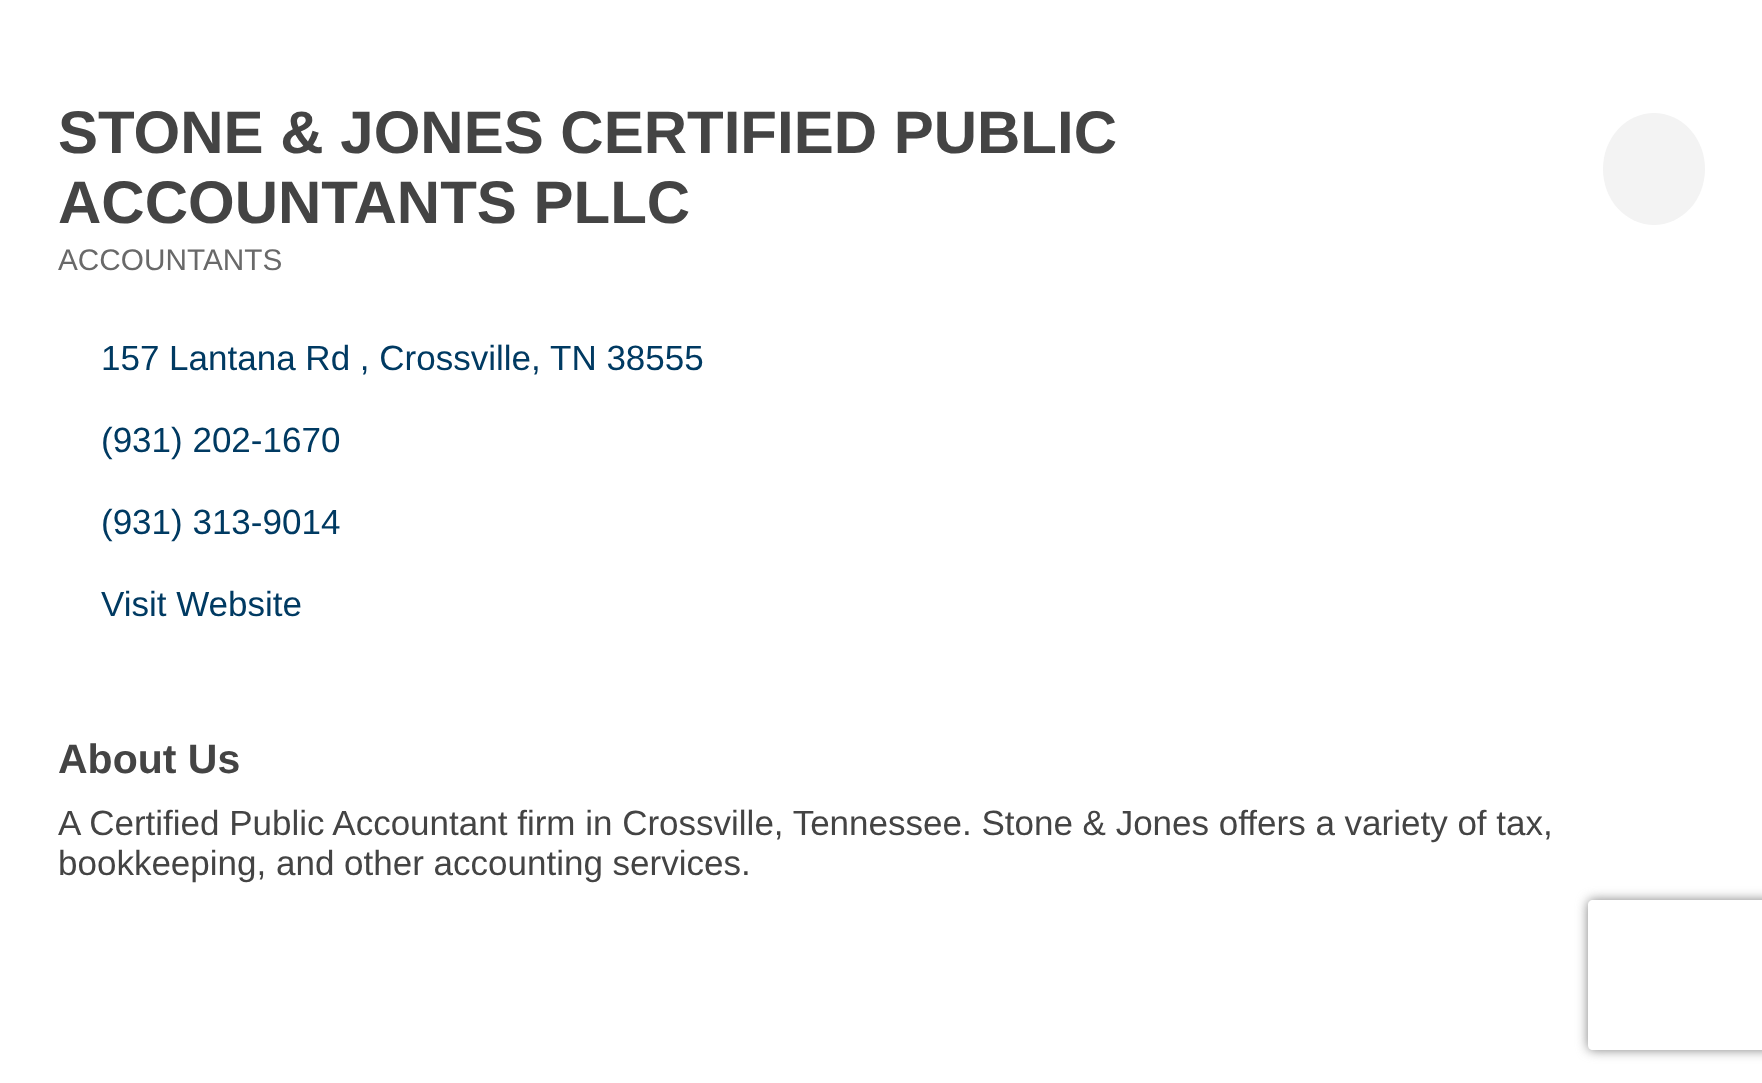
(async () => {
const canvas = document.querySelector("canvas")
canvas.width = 1762
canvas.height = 1083
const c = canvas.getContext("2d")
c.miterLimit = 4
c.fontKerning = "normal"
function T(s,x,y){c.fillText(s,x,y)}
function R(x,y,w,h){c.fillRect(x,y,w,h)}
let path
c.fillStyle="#fff"
R(0,0,1762,1083)
c.font="bold 60px Liberation Sans"
c.fillStyle="#444"
T("STONE & JONES CERTIFIED PUBLIC",58,153)
T("ACCOUNTANTS PLLC",58,223)
c.fillStyle="#f3f3f3"
c.beginPath()
c.ellipse(1654,169,51,56,0,0,7)
c.fill()
c.font="29.75px Liberation Sans"
c.fillStyle="#696969"
T("ACCOUNTANTS",58,270)
c.font="35px Liberation Sans"
c.fillStyle="#003a62"
T("157 Lantana Rd , Crossville,",101,370)
T("TN 38555",550,370)
T("(931) 202-1670",101,452)
T("(931) 313-9014",101,534)
T("Visit Website",101,616)
c.font="bold 41px Liberation Sans"
c.fillStyle="#444"
T("About Us",58,773)
c.font="35px Liberation Sans"
T("A Certified Public Accountant firm in Crossville, Tennessee. Stone & Jones offers a variety of tax,",58,835)
T("bookkeeping, and other accounting services.",58,875)
c.save()
path = new Path2D("M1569 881h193v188h-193zm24 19h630c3 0 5 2 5 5v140c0 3-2 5-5 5h-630c-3 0-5-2-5-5v-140c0-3 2-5 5-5z")
c.clip(path,"evenodd")
c.fillStyle="#808080"
c.filter="blur(6px)"
c.beginPath()
c.roundRect(1588,900,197,150,5)
c.fill()
c.filter="none"
c.restore()
})()
